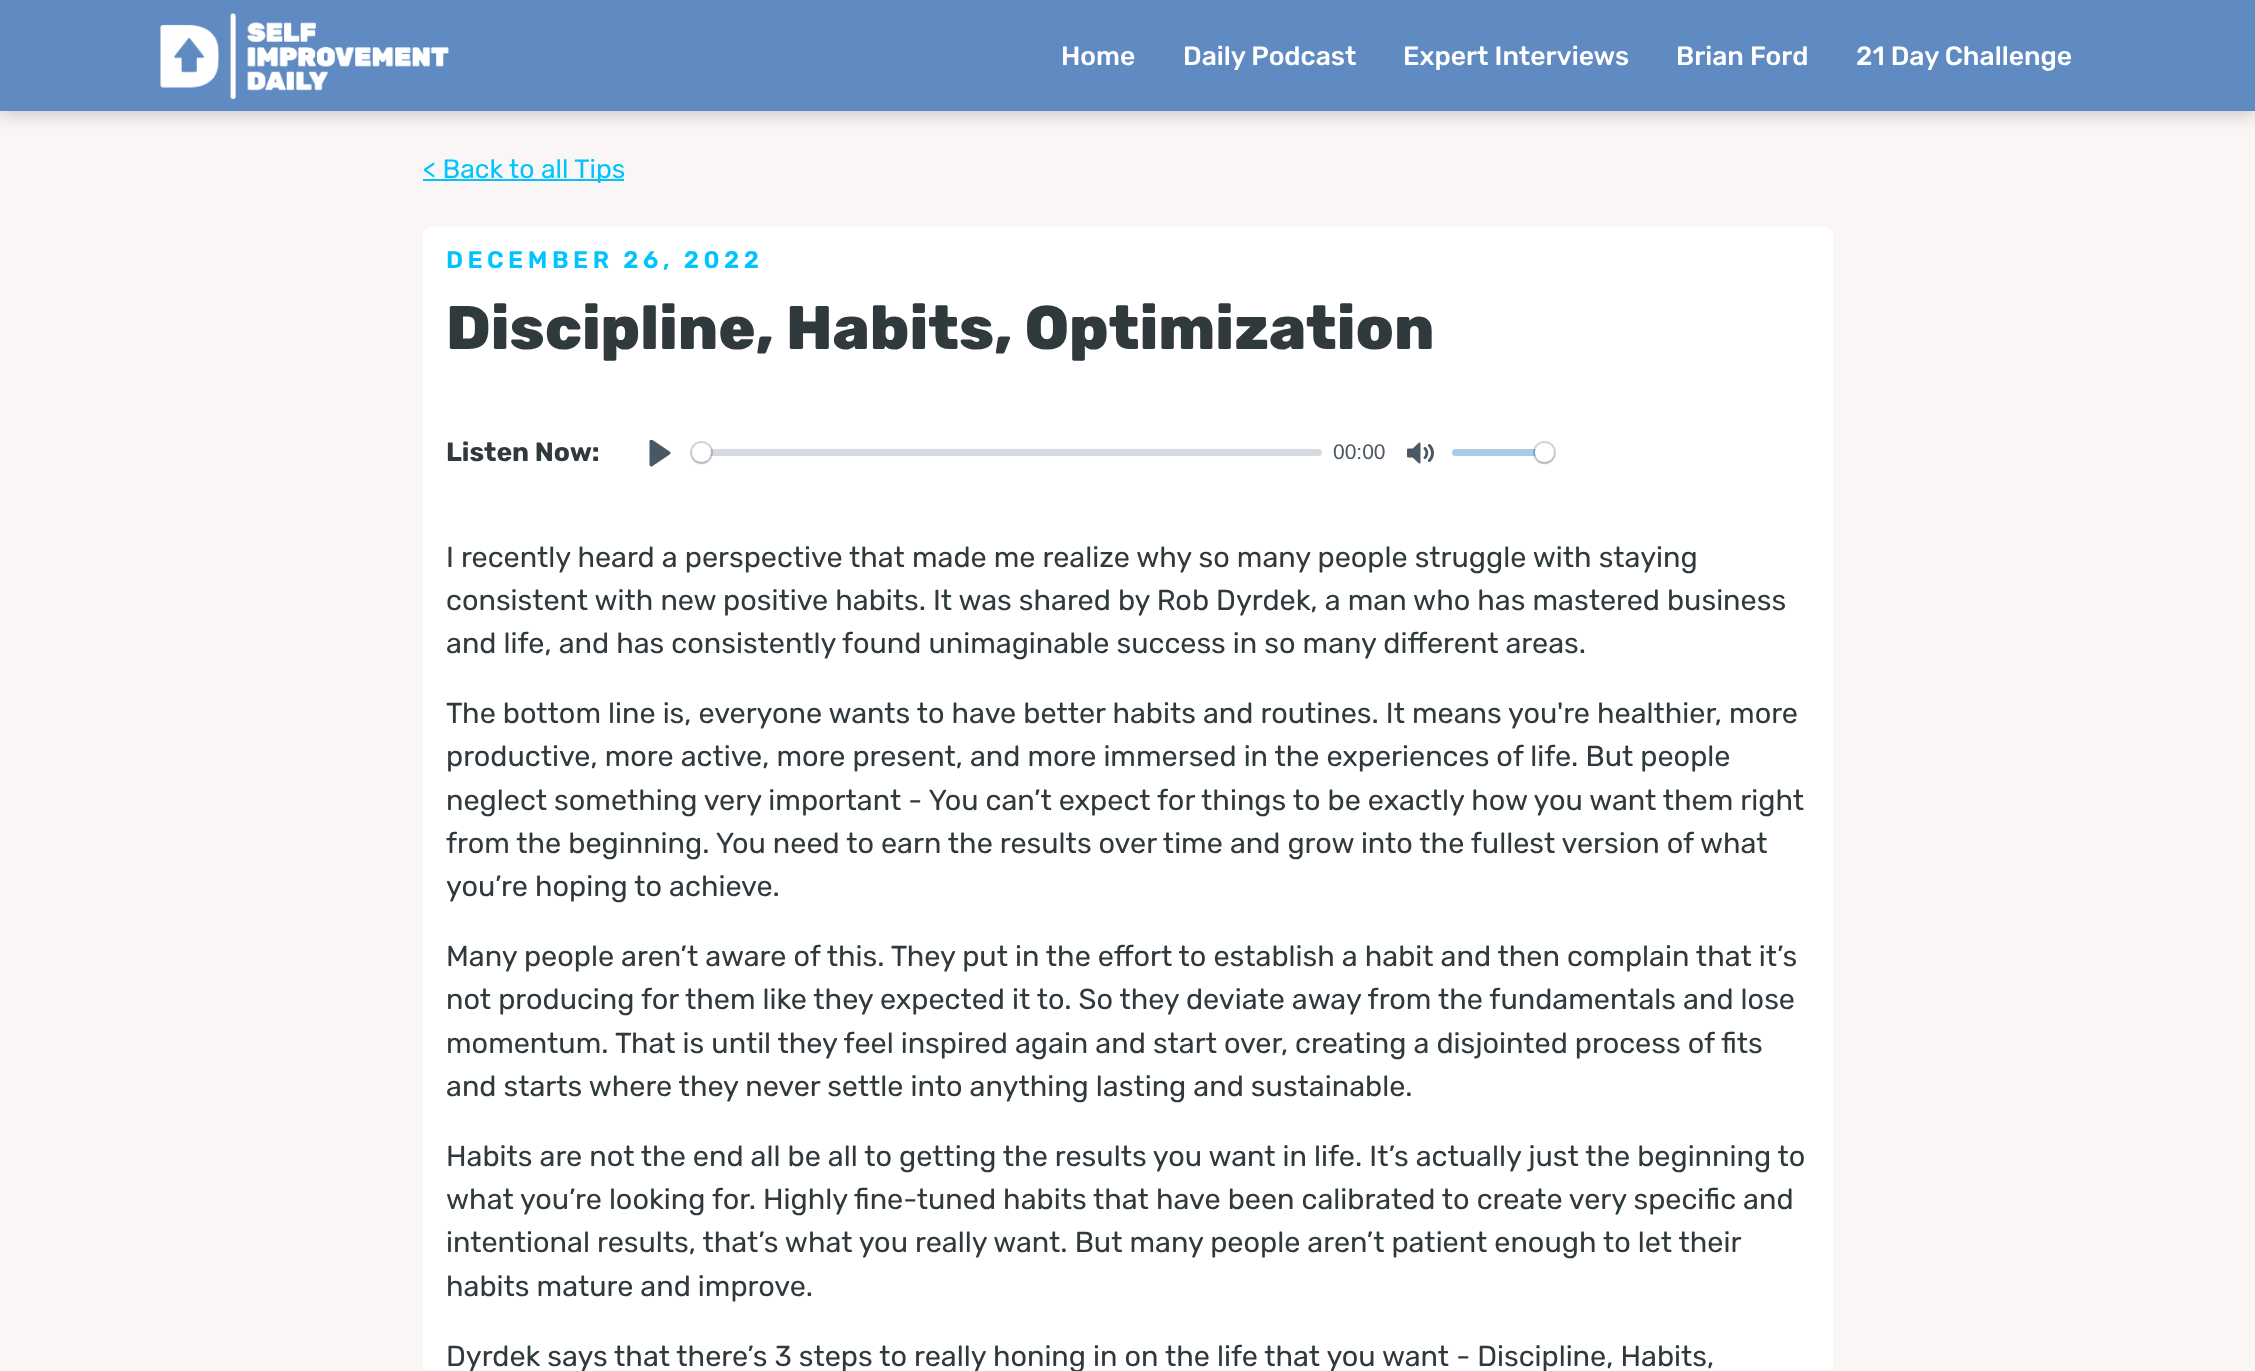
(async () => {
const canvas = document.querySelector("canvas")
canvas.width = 2255
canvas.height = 1371
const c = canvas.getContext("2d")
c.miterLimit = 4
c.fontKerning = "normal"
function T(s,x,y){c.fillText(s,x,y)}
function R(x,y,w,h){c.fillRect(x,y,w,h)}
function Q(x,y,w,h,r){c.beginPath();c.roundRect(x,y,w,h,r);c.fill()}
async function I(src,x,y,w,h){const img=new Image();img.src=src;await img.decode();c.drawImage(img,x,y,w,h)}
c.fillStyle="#faf6f6"
R(0,0,2255,1371)
c.fillStyle="#00000033"
c.filter="blur(9px)"
c.beginPath()
c.rect(0,3,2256,111)
c.fill()
c.filter="none"
c.fillStyle="#5f8ac2"
R(0,0,2255,111)
await I("1.png",160,13,289,86)
c.font="500 26.5px Rubik"
c.fillStyle="#fff"
T("Home",1061,65)
T("Daily Podcast",1183,65)
T("Expert Interviews",1403,65)
T("Brian Ford",1676,65)
T("21 Day Challenge",1856,65)
c.fillStyle="#00c4fe"
R(423,179,201,2)
c.font="26.5px Rubik"
T("< Back to all Tips",423,178)
c.fillStyle="#fff"
Q(423,227,1410,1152,8)
c.letterSpacing="4.5px"
c.font="600 24px Rubik"
c.fillStyle="#00c4fe"
T("DECEMBER 26, 2022",446,268)
c.letterSpacing="0px"
c.font="800 61.5px Rubik"
c.fillStyle="#30393c"
T("Discipline, Habits, Optimization",446,349)
c.font="bold 26.5px Rubik"
T("Listen Now:",446,461)
await I("2.png",649,440,22,27)
c.fillStyle="#c1c9d1a8"
Q(692,449,630,7,3.5)
c.beginPath()
c.arc(701.5,452.5,10.5,0,7)
c.strokeStyle="#23292f33"
c.lineWidth=2
c.stroke()
c.fillStyle="#00000026"
c.filter="blur(1px)"
c.beginPath()
c.roundRect(692,444,19,20,9.5)
c.fill()
c.filter="none"
c.fillStyle="#fff"
c.beginPath()
c.arc(701.5,452.5,9.5,0,7)
c.fill()
c.font="21px Liberation Sans"
c.fillStyle="#4a5764"
T("00:00",1333,459)
await I("3.png",1407,442,27,22)
c.fillStyle="#a8cbea"
Q(1452,449,102,7,3.5)
c.beginPath()
c.arc(1544.5,452.5,10.5,0,7)
c.stroke()
c.fillStyle="#00000026"
c.filter="blur(1px)"
c.beginPath()
c.roundRect(1535,444,19,20,9.5)
c.fill()
c.filter="none"
c.fillStyle="#fff"
c.beginPath()
c.arc(1544.5,452.5,9.5,0,7)
c.fill()
c.font="28.8px Rubik"
c.fillStyle="#30393c"
T("I recently heard a perspective that made me realize why so many people struggle with staying",446,567)
T("consistent with new positive habits. It was shared by Rob Dyrdek, a man who has mastered business",446,610)
T("and life, and has consistently found unimaginable success in so many different areas.",446,653)
T("The bottom line is, everyone wants to have better habits and routines. It means you're healthier, more",446,723)
T("productive, more active, more present, and more immersed in the experiences of life. But people",446,766)
T("neglect something very important - You can’t expect for things to be exactly how you want them right",446,810)
T("from the beginning. You need to earn the results over time and grow into the fullest version of what",446,853)
T("you’re hoping to achieve.",446,896)
T("Many people aren’t aware of this. They put in the effort to establish a habit and then complain that it’s",446,966)
T("not producing for them like they expected it to. So they deviate away from the fundamentals and lose",446,1009)
T("momentum. That is until they feel inspired again and start over, creating a disjointed process of fits",446,1053)
T("and starts where they never settle into anything lasting and sustainable.",446,1096)
T("Habits are not the end all be all to getting the results you want in life. It’s actually just the beginning to",446,1166)
T("what you’re looking for. Highly fine-tuned habits that have been calibrated to create very specific and",446,1209)
T("intentional results, that’s what you really want. But many people aren’t patient enough to let their",446,1252)
T("habits mature and improve.",446,1296)
T("Dyrdek says that there’s 3 steps to really honing in on the life that you want - Discipline, Habits,",446,1366)
})()
